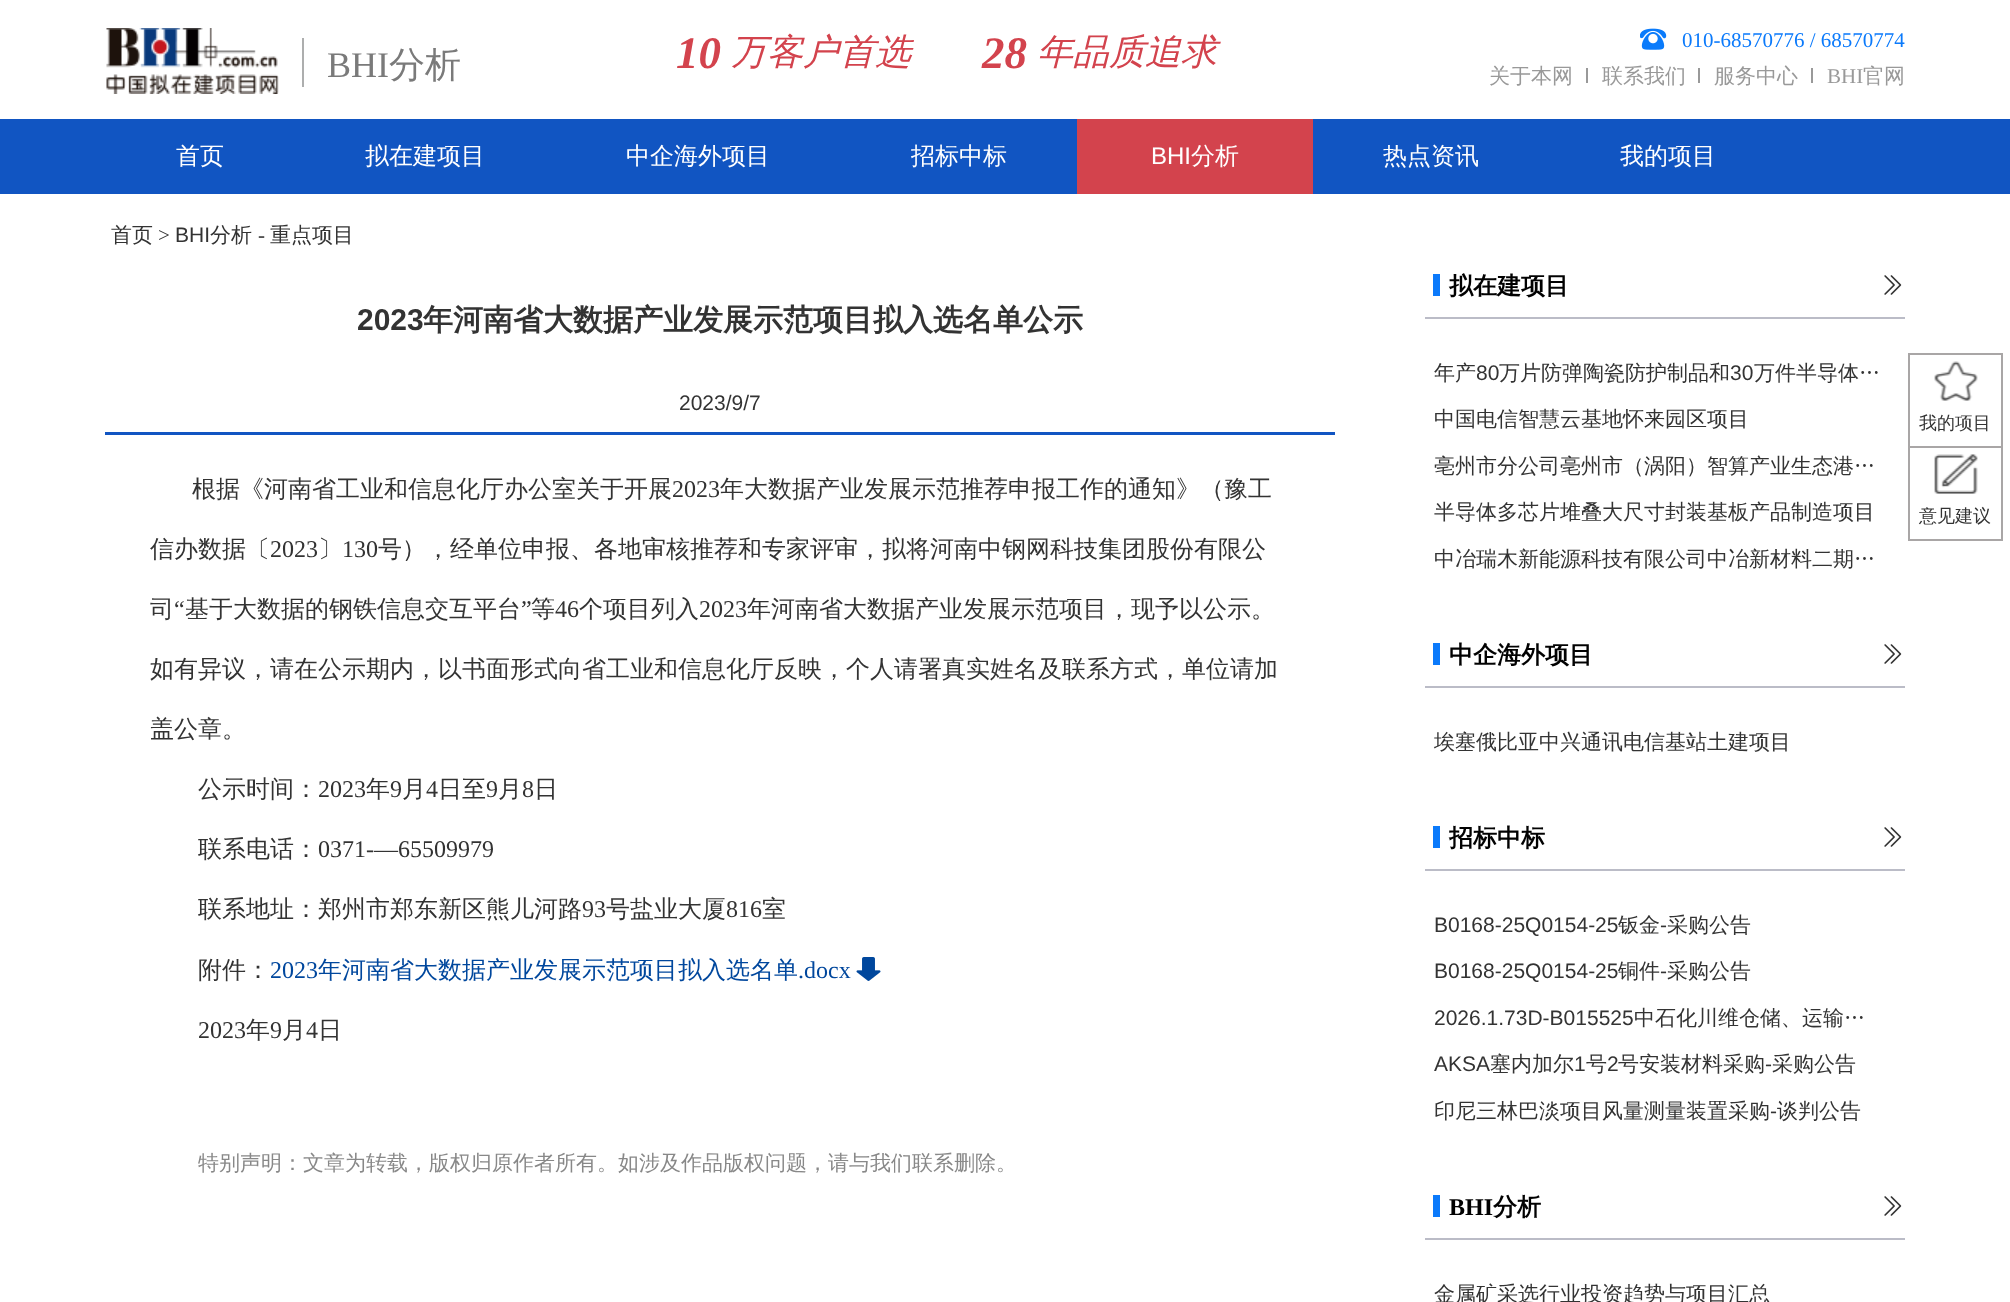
(async () => {
const canvas = document.querySelector("canvas")
canvas.width = 2010
canvas.height = 1302
const c = canvas.getContext("2d")
c.miterLimit = 4
c.fontKerning = "normal"
function T(s,x,y){c.fillText(s,x,y)}
function R(x,y,w,h){c.fillRect(x,y,w,h)}
async function I(src,x,y,w,h){const img=new Image();img.src=src;await img.decode();c.drawImage(img,x,y,w,h)}
c.fillStyle="#fff"
R(0,0,2010,1302)
await I("1.png",106,28,173,66)
c.fillStyle="#adaeae"
R(302,38,2,49)
c.font="36px Liberation Serif"
c.fillStyle="#7a7a7a"
T("BHI",327,77)
c.font="500 36px WenQuanYi Zen Hei"
T("分析",389,77)
c.font="italic bold 45px Liberation Serif"
c.fillStyle="#d3434d"
T("10",676,68)
c.font="italic 500 36px WenQuanYi Zen Hei"
T("万客户首选",731,64)
c.font="italic bold 45px Liberation Serif"
T("28",982,68)
c.font="italic 500 36px WenQuanYi Zen Hei"
T("年品质追求",1037,64)
await I("2.png",1640,28,27,22)
c.font="21px Liberation Serif"
c.fillStyle="#0b7afb"
T("010-68570776 / 68570774",1682,47)
c.font="500 21px WenQuanYi Zen Hei"
c.fillStyle="#999"
T("关于本网",1489,83)
R(1586,68,2,15)
T("联系我们",1602,83)
R(1698,68,2,15)
T("服务中心",1714,83)
R(1811,68,2,15)
c.font="21px Liberation Serif"
T("BHI",1827,83)
c.font="500 21px WenQuanYi Zen Hei"
T("官网",1863,83)
c.fillStyle="#1155c2"
R(0,119,2010,75)
c.font="500 24px WenQuanYi Zen Hei"
c.fillStyle="#fff"
T("首页",176,164)
T("拟在建项目",365,164)
T("中企海外项目",626,164)
T("招标中标",911,164)
c.fillStyle="#d3434d"
R(1077,119,236,75)
c.font="24px Liberation Sans"
c.fillStyle="#fff"
T("BHI",1151,164)
c.font="500 24px WenQuanYi Zen Hei"
T("分析",1191,164)
T("热点资讯",1383,164)
T("我的项目",1620,164)
c.font="500 21px WenQuanYi Zen Hei"
c.fillStyle="#333"
T("首页",111,242)
c.font="21px Liberation Serif"
T(">",158,242)
c.font="21px Liberation Sans"
T("BHI",175,242)
c.font="500 21px WenQuanYi Zen Hei"
T("分析",210,242)
c.font="21px Liberation Serif"
T("-",258,242)
c.font="500 21px WenQuanYi Zen Hei"
T("重点项目",270,242)
c.font="bold 30px Liberation Sans"
T("2023",357,330)
c.font="bold 30px WenQuanYi Zen Hei"
T("年河南省大数据产业发展示范项目拟入选名单公示",423,330)
c.font="21px Liberation Sans"
T("2023/9/7",679,410)
c.fillStyle="#1155c2"
R(105,432,1230,3)
c.font="500 24px WenQuanYi Zen Hei"
c.fillStyle="#333"
T("根据《河南省工业和信息化厅办公室关于开展",192,497)
c.font="24px Liberation Serif"
T("2023",672,497)
c.font="500 24px WenQuanYi Zen Hei"
T("年大数据产业发展示范推荐申报工作的通知》（豫工",720,497)
T("信办数据〔",150,557)
c.font="24px Liberation Serif"
T("2023",270,557)
c.font="500 24px WenQuanYi Zen Hei"
T("〕",318,557)
c.font="24px Liberation Serif"
T("130",342,557)
c.font="500 24px WenQuanYi Zen Hei"
T("号），经单位申报、各地审核推荐和专家评审，拟将河南中钢网科技集团股份有限公",378,557)
T("司",150,617)
c.font="24px Liberation Serif"
T("“",174,617)
c.font="500 24px WenQuanYi Zen Hei"
T("基于大数据的钢铁信息交互平台",185,617)
c.font="24px Liberation Serif"
T("”",521,617)
c.font="500 24px WenQuanYi Zen Hei"
T("等",531,617)
c.font="24px Liberation Serif"
T("46",555,617)
c.font="500 24px WenQuanYi Zen Hei"
T("个项目列入",579,617)
c.font="24px Liberation Serif"
T("2023",699,617)
c.font="500 24px WenQuanYi Zen Hei"
T("年河南省大数据产业发展示范项目，现予以公示。",747,617)
T("如有异议，请在公示期内，以书面形式向省工业和信息化厅反映，个人请署真实姓名及联系方式，单位请加",150,677)
T("盖公章。",150,737)
T("公示时间：",198,797)
c.font="24px Liberation Serif"
T("2023",318,797)
c.font="500 24px WenQuanYi Zen Hei"
T("年",366,797)
c.font="24px Liberation Serif"
T("9",390,797)
c.font="500 24px WenQuanYi Zen Hei"
T("月",402,797)
c.font="24px Liberation Serif"
T("4",426,797)
c.font="500 24px WenQuanYi Zen Hei"
T("日至",438,797)
c.font="24px Liberation Serif"
T("9",486,797)
c.font="500 24px WenQuanYi Zen Hei"
T("月",498,797)
c.font="24px Liberation Serif"
T("8",522,797)
c.font="500 24px WenQuanYi Zen Hei"
T("日",534,797)
T("联系电话：",198,857)
c.font="24px Liberation Serif"
T("0371-—65509979",318,857)
c.font="500 24px WenQuanYi Zen Hei"
T("联系地址：郑州市郑东新区熊儿河路",198,917)
c.font="24px Liberation Serif"
T("93",582,917)
c.font="500 24px WenQuanYi Zen Hei"
T("号盐业大厦",606,917)
c.font="24px Liberation Serif"
T("816",726,917)
c.font="500 24px WenQuanYi Zen Hei"
T("室",762,917)
T("附件：",198,978)
c.font="24px Liberation Serif"
c.fillStyle="#00479d"
T("2023",270,978)
c.font="500 24px WenQuanYi Zen Hei"
T("年河南省大数据产业发展示范项目拟入选名单",318,978)
c.font="24px Liberation Serif"
T(".docx",798,978)
await I("3.png",856,957,25,24)
c.fillStyle="#333"
T("2023",198,1038)
c.font="500 24px WenQuanYi Zen Hei"
T("年",246,1038)
c.font="24px Liberation Serif"
T("9",270,1038)
c.font="500 24px WenQuanYi Zen Hei"
T("月",282,1038)
c.font="24px Liberation Serif"
T("4",306,1038)
c.font="500 24px WenQuanYi Zen Hei"
T("日",318,1038)
c.font="500 21px WenQuanYi Zen Hei"
c.fillStyle="#888"
T("特别声明：文章为转载，版权归原作者所有。如涉及作品版权问题，请与我们联系删除。",198,1170)
c.fillStyle="#bbbcc7"
R(1425,317,480,2)
c.fillStyle="#0b7afb"
R(1433,274,7,22)
c.font="bold 24px WenQuanYi Zen Hei"
c.fillStyle="#010101"
T("拟在建项目",1449,294)
await I("4.png",1884,275,18,20)
c.font="500 21px WenQuanYi Zen Hei"
c.fillStyle="#333"
T("年产",1434,380)
c.font="21px Liberation Sans"
T("80",1476,380)
c.font="500 21px WenQuanYi Zen Hei"
T("万片防弹陶瓷防护制品和",1499,380)
c.font="21px Liberation Sans"
T("30",1730,380)
c.font="500 21px WenQuanYi Zen Hei"
T("万件半导体…",1754,380)
T("中国电信智慧云基地怀来园区项目",1434,426)
T("亳州市分公司亳州市（涡阳）智算产业生态港…",1434,473)
T("半导体多芯片堆叠大尺寸封装基板产品制造项目",1434,519)
T("中冶瑞木新能源科技有限公司中冶新材料二期…",1434,566)
c.fillStyle="#bbbcc7"
R(1425,686,480,2)
c.fillStyle="#0b7afb"
R(1433,643,7,22)
c.font="bold 24px WenQuanYi Zen Hei"
c.fillStyle="#010101"
T("中企海外项目",1449,663)
await I("4.png",1884,644,18,20)
c.font="500 21px WenQuanYi Zen Hei"
c.fillStyle="#333"
T("埃塞俄比亚中兴通讯电信基站土建项目",1434,749)
c.fillStyle="#bbbcc7"
R(1425,869,480,2)
c.fillStyle="#0b7afb"
R(1433,826,7,22)
c.font="bold 24px WenQuanYi Zen Hei"
c.fillStyle="#010101"
T("招标中标",1449,846)
await I("4.png",1884,827,18,20)
c.font="21px Liberation Sans"
c.fillStyle="#333"
T("B0168-25Q0154-25",1434,932)
c.font="500 21px WenQuanYi Zen Hei"
T("钣金",1618,932)
c.font="21px Liberation Sans"
T("-",1660,932)
c.font="500 21px WenQuanYi Zen Hei"
T("采购公告",1667,932)
c.font="21px Liberation Sans"
T("B0168-25Q0154-25",1434,978)
c.font="500 21px WenQuanYi Zen Hei"
T("铜件",1618,978)
c.font="21px Liberation Sans"
T("-",1660,978)
c.font="500 21px WenQuanYi Zen Hei"
T("采购公告",1667,978)
c.font="21px Liberation Sans"
T("2026.1.73D-B015525",1434,1025)
c.font="500 21px WenQuanYi Zen Hei"
T("中石化川维仓储、运输…",1634,1025)
c.font="21px Liberation Sans"
T("AKSA",1434,1071)
c.font="500 21px WenQuanYi Zen Hei"
T("塞内加尔",1490,1071)
c.font="21px Liberation Sans"
T("1",1574,1071)
c.font="500 21px WenQuanYi Zen Hei"
T("号",1586,1071)
c.font="21px Liberation Sans"
T("2",1607,1071)
c.font="500 21px WenQuanYi Zen Hei"
T("号安装材料采购",1618,1071)
c.font="21px Liberation Sans"
T("-",1765,1071)
c.font="500 21px WenQuanYi Zen Hei"
T("采购公告",1772,1071)
T("印尼三林巴淡项目风量测量装置采购",1434,1118)
c.font="21px Liberation Sans"
T("-",1770,1118)
c.font="500 21px WenQuanYi Zen Hei"
T("谈判公告",1777,1118)
c.fillStyle="#bbbcc7"
R(1425,1238,480,2)
c.fillStyle="#0b7afb"
R(1433,1195,7,22)
c.font="bold 24px Liberation Serif"
c.fillStyle="#010101"
T("BHI",1449,1215)
c.font="bold 24px WenQuanYi Zen Hei"
T("分析",1493,1215)
await I("4.png",1884,1196,18,20)
c.font="500 21px WenQuanYi Zen Hei"
c.fillStyle="#333"
T("金属矿采选行业投资趋势与项目汇总",1434,1301)
c.fillStyle="#a9a6a6"
R(1908,353,95,2)
R(1908,446,95,2)
R(2001,446,2,94)
R(2001,353,2,94)
R(1908,539,95,2)
R(1908,446,2,94)
R(1908,353,2,94)
await I("5.png",1934,361,44,40)
c.font="500 18px WenQuanYi Zen Hei"
c.fillStyle="#333"
T("我的项目",1919,429)
await I("6.png",1934,454,44,40)
T("意见建议",1919,522)
})()
